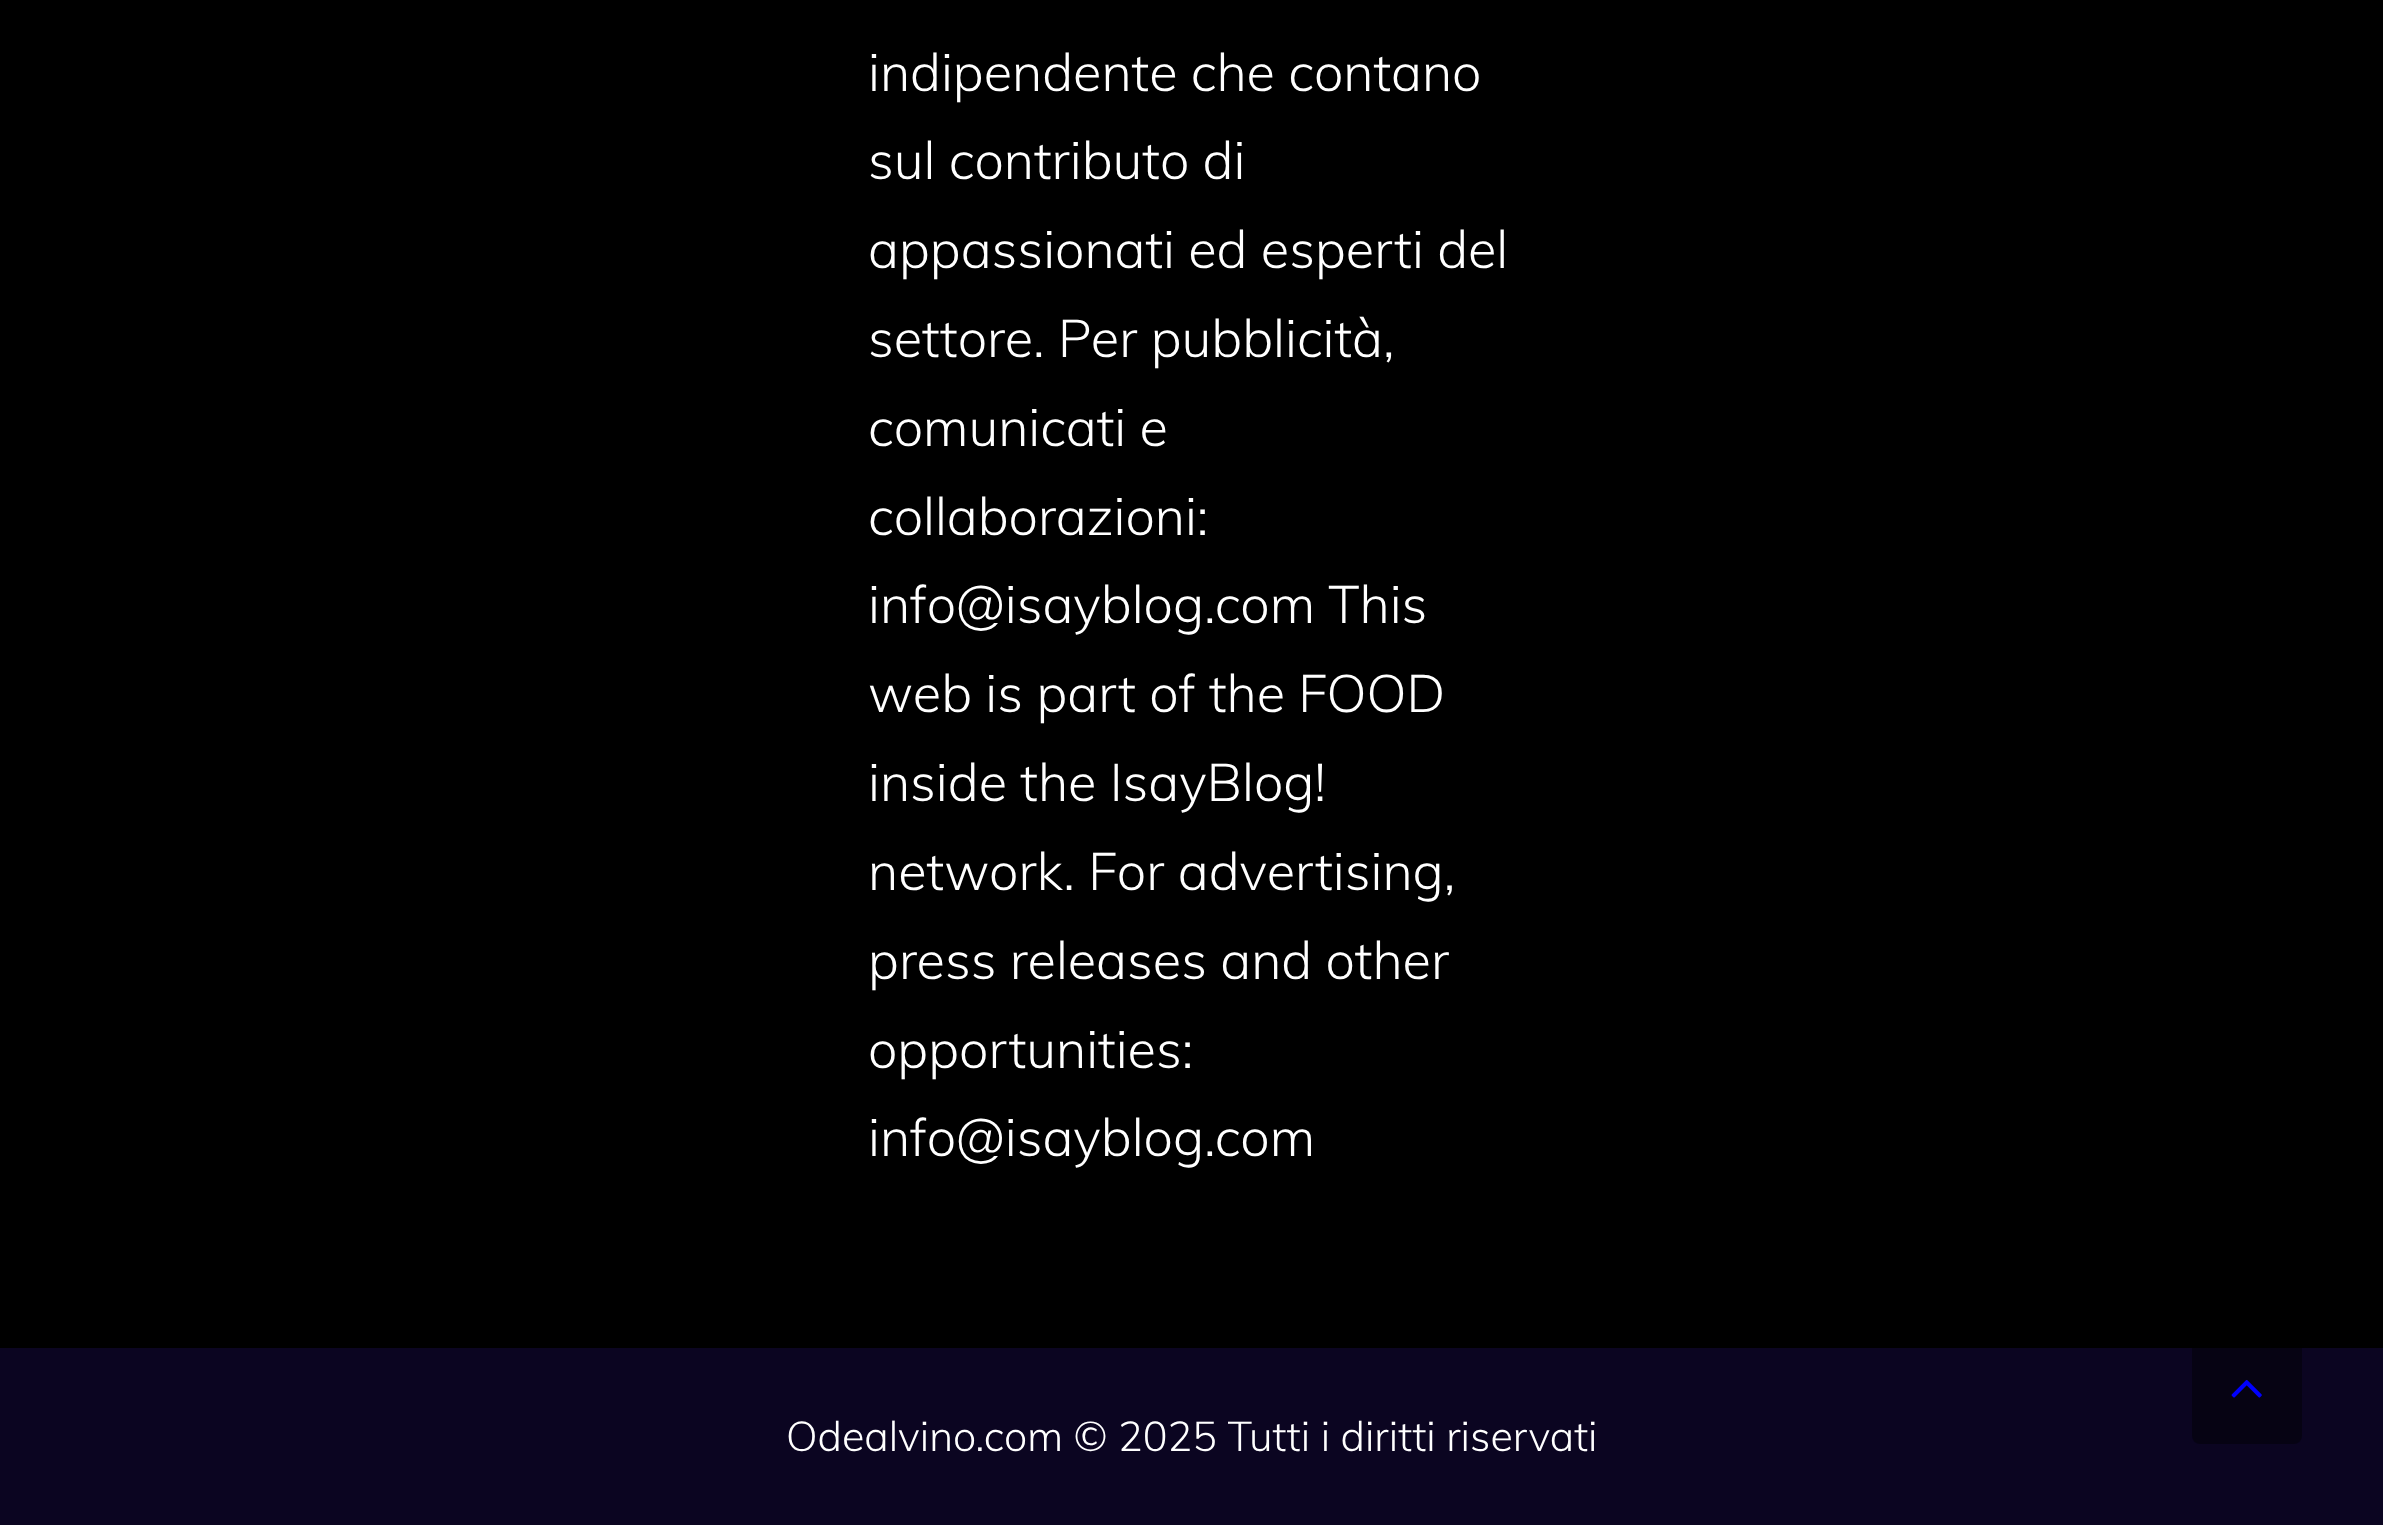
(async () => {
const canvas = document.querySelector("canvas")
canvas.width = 2383
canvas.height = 1525
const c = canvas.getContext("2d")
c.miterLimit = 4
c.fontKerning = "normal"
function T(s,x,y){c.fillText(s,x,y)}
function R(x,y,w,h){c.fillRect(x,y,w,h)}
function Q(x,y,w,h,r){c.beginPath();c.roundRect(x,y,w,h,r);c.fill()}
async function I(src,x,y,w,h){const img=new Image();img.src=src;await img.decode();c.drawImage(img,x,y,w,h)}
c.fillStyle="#000"
R(0,0,2383,1525)
c.font="300 52.25px Muli"
c.fillStyle="#fff"
T("indipendente che contano",868,91)
T("sul contributo di",868,179)
T("appassionati ed esperti del",868,268)
T("settore. Per pubblicità,",868,357)
T("comunicati e",868,446)
T("collaborazioni:",868,535)
T("info@isayblog.com This",868,623)
T("web is part of the FOOD",868,712)
T("inside the IsayBlog!",868,801)
T("network. For advertising,",868,890)
T("press releases and other",868,979)
T("opportunities:",868,1068)
T("info@isayblog.com",868,1156)
c.fillStyle="#0b0521"
R(0,1348,2383,177)
c.font="300 41.25px Muli"
c.fillStyle="#fff"
T("Odealvino.com © 2025 Tutti i diritti riservati",786,1451)
c.fillStyle="#00000066"
Q(2192,1334,110,110,8)
await I("1.png",2231,1379,31,19)
})()
